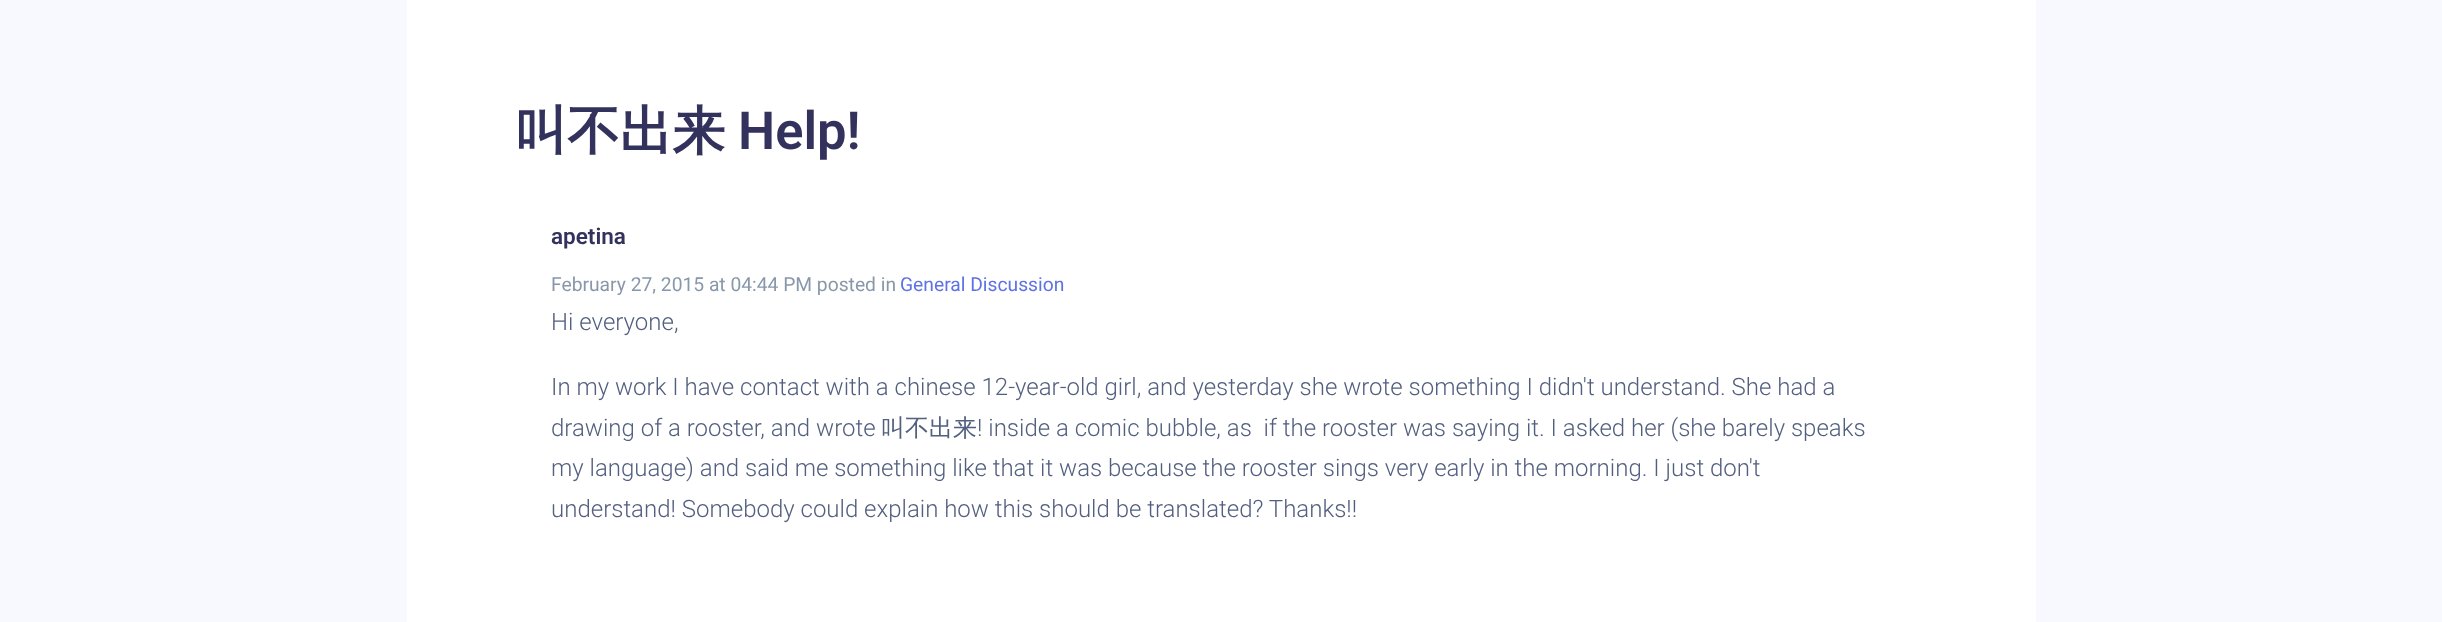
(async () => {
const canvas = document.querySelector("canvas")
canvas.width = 2442
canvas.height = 622
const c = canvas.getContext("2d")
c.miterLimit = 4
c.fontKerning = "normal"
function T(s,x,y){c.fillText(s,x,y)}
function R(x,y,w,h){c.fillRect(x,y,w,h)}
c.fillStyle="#f8f9fe"
R(0,0,2442,622)
c.fillStyle="#fff"
R(407,0,1629,622)
c.font="bold 52.5px WenQuanYi Zen Hei"
c.fillStyle="#32325d"
T("叫不出来",515,149)
c.font="600 52.5px Roboto"
T("Help!",738,149)
c.font="600 22.5px Roboto"
T("apetina",551,244)
c.font="19.25px Roboto"
c.fillStyle="#8898aa"
T("February 27, 2015 at 04:44 PM posted in",551,291)
c.fillStyle="#5e72e4"
T("General Discussion",900,291)
c.font="300 24px Roboto"
c.fillStyle="#525f7f"
T("Hi everyone,",551,330)
T("In my work I have contact with a chinese 12-year-old girl, and yesterday she wrote something I didn't understand. She had a",551,395)
T("drawing of a rooster, and wrote",551,436)
c.font="500 24px WenQuanYi Zen Hei"
T("叫不出来",881,436)
c.font="300 24px Roboto"
T("! inside a comic bubble, as  if the rooster was saying it. I asked her (she barely speaks",977,436)
T("my language) and said me something like that it was because the rooster sings very early in the morning. I just don't",551,476)
T("understand! Somebody could explain how this should be translated? Thanks!!",551,517)
})()
